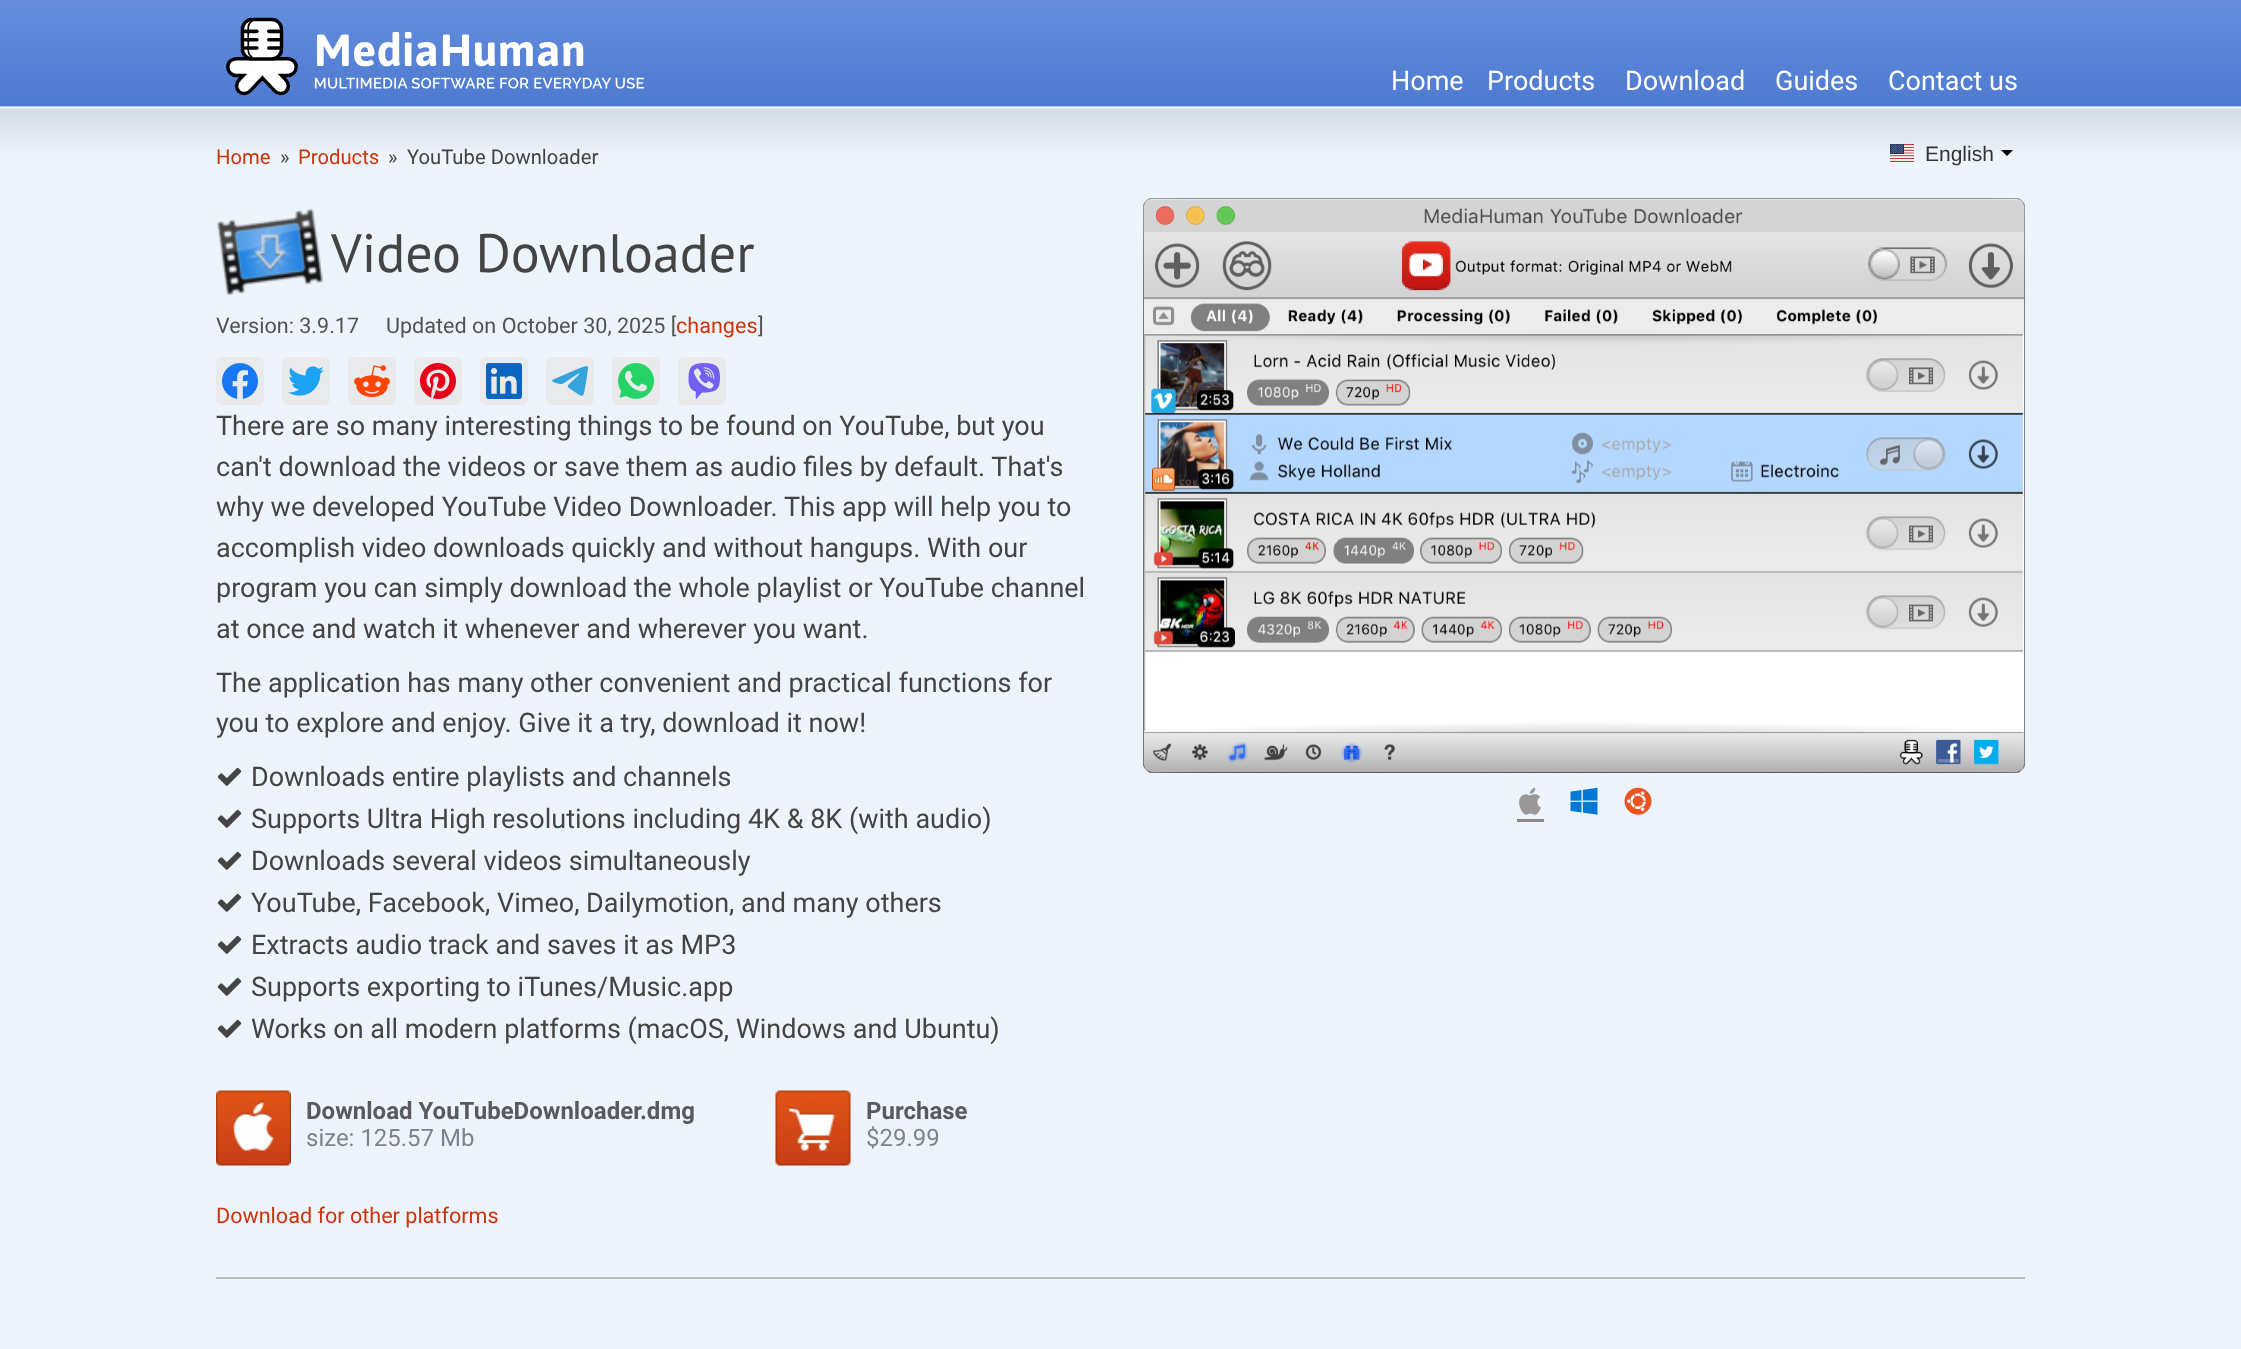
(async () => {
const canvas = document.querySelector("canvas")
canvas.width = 2241
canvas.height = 1349
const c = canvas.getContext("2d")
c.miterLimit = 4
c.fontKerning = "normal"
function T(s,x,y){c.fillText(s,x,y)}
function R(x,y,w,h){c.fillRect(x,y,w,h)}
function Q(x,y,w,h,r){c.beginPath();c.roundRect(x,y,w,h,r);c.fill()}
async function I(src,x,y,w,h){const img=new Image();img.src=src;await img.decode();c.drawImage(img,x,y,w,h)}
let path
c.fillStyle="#eef4fc"
R(0,0,2241,1349)
await I("1.png",0,0,2241,151)
await I("2.png",226,17,418,79)
c.font="27px Roboto"
c.fillStyle="#fff"
T("Home",1391,90)
T("Products",1487,90)
T("Download",1625,90)
T("Guides",1775,90)
T("Contact us",1888,90)
c.font="20.25px Roboto"
c.fillStyle="#cc340a"
T("Home",216,164)
c.fillStyle="#444"
T("»",280,164)
c.fillStyle="#cc340a"
T("Products",298,164)
c.fillStyle="#444"
T("»",388,164)
T("YouTube Downloader",407,164)
await I("3.png",1890,144,24,18)
c.font="21px Liberation Sans"
c.fillStyle="#333"
T("English",1925,161)
c.fillStyle="#000"
path = new Path2D("M2001 150h12l-6 6z")
c.fill(path)
await I("4.png",216,208,108,88)
c.font="54px PT Sans"
c.fillStyle="#444"
T("Video Downloader",331,272)
c.font="21.6px Roboto"
c.fillStyle="#525252"
T("Version: 3.9.17",216,333)
T("Updated on October 30, 2025 [",386,333)
c.fillStyle="#cc340a"
T("changes",676,333)
c.fillStyle="#525252"
T("]",758,333)
c.fillStyle="#e9eaec"
Q(216,357,48,48,6)
await I("5.png",222,363,36,36)
Q(282,357,48,48,6)
await I("6.png",288,366,36,30)
Q(348,357,48,48,6)
await I("7.png",354,365,36,32)
Q(414,357,48,48,6)
await I("8.png",420,363,36,36)
Q(480,357,48,48,6)
await I("9.png",486,363,36,36)
Q(546,357,48,48,6)
await I("10.png",552,366,36,30)
Q(612,357,48,48,6)
await I("11.png",618,363,36,36)
Q(678,357,48,48,6)
await I("12.png",688,363,32,36)
c.font="27px Roboto"
c.fillStyle="#444"
T("There are so many interesting things to be found on YouTube, but you",216,435)
T("can't download the videos or save them as audio files by default. That's",216,476)
T("why we developed YouTube Video Downloader. This app will help you to",216,516)
T("accomplish video downloads quickly and without hangups. With our",216,557)
T("program you can simply download the whole playlist or YouTube channel",216,597)
T("at once and watch it whenever and wherever you want.",216,638)
T("The application has many other convenient and practical functions for",216,692)
T("you to explore and enjoy. Give it a try, download it now!",216,732)
await I("13.png",217,767,25,19)
T("Downloads entire playlists and channels",251,786)
await I("13.png",217,809,25,19)
T("Supports Ultra High resolutions including 4K & 8K (with audio)",251,828)
await I("13.png",217,851,25,19)
T("Downloads several videos simultaneously",251,870)
await I("13.png",217,893,25,19)
T("YouTube, Facebook, Vimeo, Dailymotion, and many others",251,912)
await I("13.png",217,935,25,19)
T("Extracts audio track and saves it as MP3",251,954)
await I("13.png",217,977,25,19)
T("Supports exporting to iTunes/Music.app",251,996)
await I("13.png",217,1019,25,19)
T("Works on all modern platforms (macOS, Windows and Ubuntu)",251,1038)
await I("14.png",1143,198,882,575)
await I("15.png",1519,787,22,28)
await I("16.png",1570,787,28,28)
await I("17.png",1624,787,28,28)
c.fillStyle="#888"
R(1517,819,27,3)
await I("18.png",216,1090,75,76)
c.font="bold 24px Roboto"
c.fillStyle="#595a5d"
T("Download YouTubeDownloader.dmg",306,1119)
c.font="24px Roboto"
c.fillStyle="#798490"
T("size: 125.57 Mb",306,1146)
await I("19.png",775,1090,76,76)
c.font="bold 24px Roboto"
c.fillStyle="#595a5d"
T("Purchase",866,1119)
c.font="24px Roboto"
c.fillStyle="#798490"
T("$29.99",866,1146)
c.font="21.6px Roboto"
c.fillStyle="#cc340a"
T("Download for other platforms",216,1223)
c.fillStyle="#bbb"
R(216,1277,1809,2)
})()
